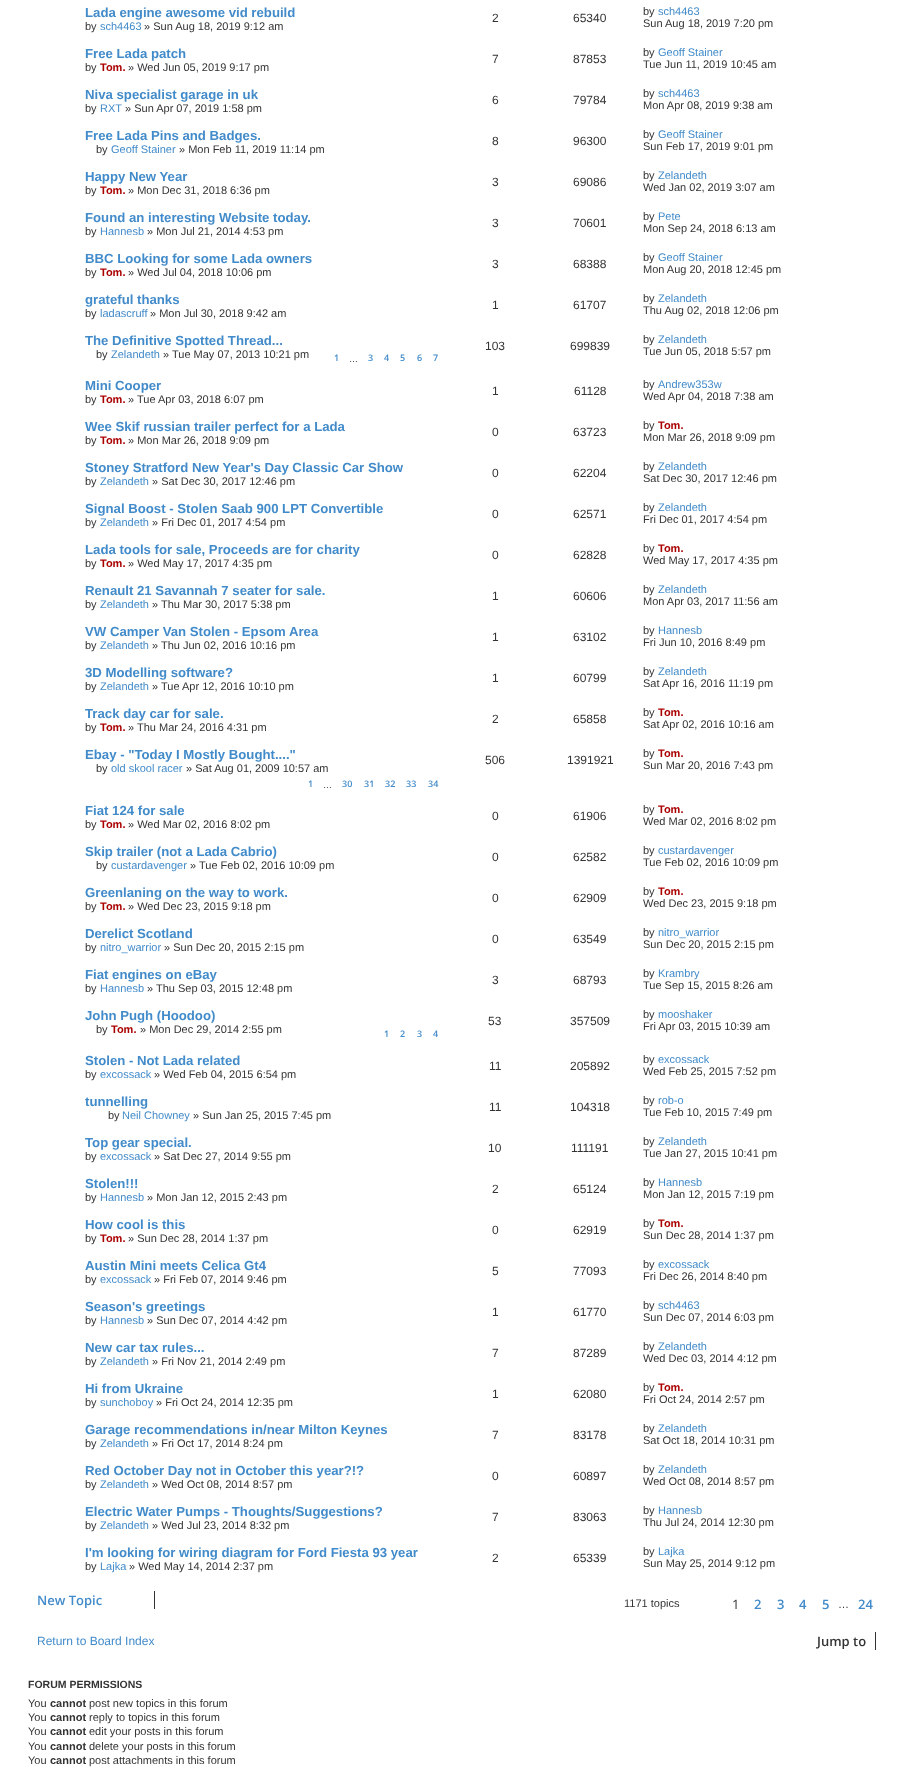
(async () => {
const canvas = document.querySelector("canvas")
canvas.width = 920
canvas.height = 1787
const c = canvas.getContext("2d")
c.miterLimit = 4
c.fontKerning = "normal"
function T(s,x,y){c.fillText(s,x,y)}
function R(x,y,w,h){c.fillRect(x,y,w,h)}
c.fillStyle="#fff"
R(0,0,920,1787)
c.font="bold 13.2px Liberation Sans"
c.fillStyle="#428bca"
T("Lada engine awesome vid rebuild",85,17)
c.font="11px Liberation Sans"
c.fillStyle="#333"
T("by",85,30)
c.fillStyle="#428bca"
T("sch4463",100,30)
c.fillStyle="#333"
T("» Sun Aug 18, 2019 9:12 am",144,30)
c.font="12px Liberation Sans"
T("2",492,22)
T("65340",573,22)
c.font="11px Liberation Sans"
T("by",643,15)
c.fillStyle="#428bca"
T("sch4463",658,15)
c.fillStyle="#333"
T("Sun Aug 18, 2019 7:20 pm",643,27)
c.font="bold 13.2px Liberation Sans"
c.fillStyle="#428bca"
T("Free Lada patch",85,58)
c.font="11px Liberation Sans"
c.fillStyle="#333"
T("by",85,71)
c.font="bold 11px Liberation Sans"
c.fillStyle="#a00"
T("Tom.",100,71)
c.font="11px Liberation Sans"
c.fillStyle="#333"
T("» Wed Jun 05, 2019 9:17 pm",128,71)
c.font="12px Liberation Sans"
T("7",492,63)
T("87853",573,63)
c.font="11px Liberation Sans"
T("by",643,56)
c.fillStyle="#428bca"
T("Geoff Stainer",658,56)
c.fillStyle="#333"
T("Tue Jun 11, 2019 10:45 am",643,68)
c.font="bold 13.2px Liberation Sans"
c.fillStyle="#428bca"
T("Niva specialist garage in uk",85,99)
c.font="11px Liberation Sans"
c.fillStyle="#333"
T("by",85,112)
c.fillStyle="#428bca"
T("RXT",100,112)
c.fillStyle="#333"
T("» Sun Apr 07, 2019 1:58 pm",125,112)
c.font="12px Liberation Sans"
T("6",492,104)
T("79784",573,104)
c.font="11px Liberation Sans"
T("by",643,97)
c.fillStyle="#428bca"
T("sch4463",658,97)
c.fillStyle="#333"
T("Mon Apr 08, 2019 9:38 am",643,109)
c.font="bold 13.2px Liberation Sans"
c.fillStyle="#428bca"
T("Free Lada Pins and Badges.",85,140)
c.font="11px Liberation Sans"
c.fillStyle="#333"
T("by",96,153)
c.fillStyle="#428bca"
T("Geoff Stainer",111,153)
c.fillStyle="#333"
T("» Mon Feb 11, 2019 11:14 pm",179,153)
c.font="12px Liberation Sans"
T("8",492,145)
T("96300",573,145)
c.font="11px Liberation Sans"
T("by",643,138)
c.fillStyle="#428bca"
T("Geoff Stainer",658,138)
c.fillStyle="#333"
T("Sun Feb 17, 2019 9:01 pm",643,150)
c.font="bold 13.2px Liberation Sans"
c.fillStyle="#428bca"
T("Happy New Year",85,181)
c.font="11px Liberation Sans"
c.fillStyle="#333"
T("by",85,194)
c.font="bold 11px Liberation Sans"
c.fillStyle="#a00"
T("Tom.",100,194)
c.font="11px Liberation Sans"
c.fillStyle="#333"
T("» Mon Dec 31, 2018 6:36 pm",128,194)
c.font="12px Liberation Sans"
T("3",492,186)
T("69086",573,186)
c.font="11px Liberation Sans"
T("by",643,179)
c.fillStyle="#428bca"
T("Zelandeth",658,179)
c.fillStyle="#333"
T("Wed Jan 02, 2019 3:07 am",643,191)
c.font="bold 13.2px Liberation Sans"
c.fillStyle="#428bca"
T("Found an interesting Website today.",85,222)
c.font="11px Liberation Sans"
c.fillStyle="#333"
T("by",85,235)
c.fillStyle="#428bca"
T("Hannesb",100,235)
c.fillStyle="#333"
T("» Mon Jul 21, 2014 4:53 pm",147,235)
c.font="12px Liberation Sans"
T("3",492,227)
T("70601",573,227)
c.font="11px Liberation Sans"
T("by",643,220)
c.fillStyle="#428bca"
T("Pete",658,220)
c.fillStyle="#333"
T("Mon Sep 24, 2018 6:13 am",643,232)
c.font="bold 13.2px Liberation Sans"
c.fillStyle="#428bca"
T("BBC Looking for some Lada owners",85,263)
c.font="11px Liberation Sans"
c.fillStyle="#333"
T("by",85,276)
c.font="bold 11px Liberation Sans"
c.fillStyle="#a00"
T("Tom.",100,276)
c.font="11px Liberation Sans"
c.fillStyle="#333"
T("» Wed Jul 04, 2018 10:06 pm",128,276)
c.font="12px Liberation Sans"
T("3",492,268)
T("68388",573,268)
c.font="11px Liberation Sans"
T("by",643,261)
c.fillStyle="#428bca"
T("Geoff Stainer",658,261)
c.fillStyle="#333"
T("Mon Aug 20, 2018 12:45 pm",643,273)
c.font="bold 13.2px Liberation Sans"
c.fillStyle="#428bca"
T("grateful thanks",85,304)
c.font="11px Liberation Sans"
c.fillStyle="#333"
T("by",85,317)
c.fillStyle="#428bca"
T("ladascruff",100,317)
c.fillStyle="#333"
T("» Mon Jul 30, 2018 9:42 am",150,317)
c.font="12px Liberation Sans"
T("1",492,309)
T("61707",573,309)
c.font="11px Liberation Sans"
T("by",643,302)
c.fillStyle="#428bca"
T("Zelandeth",658,302)
c.fillStyle="#333"
T("Thu Aug 02, 2018 12:06 pm",643,314)
c.font="bold 13.2px Liberation Sans"
c.fillStyle="#428bca"
T("The Definitive Spotted Thread...",85,345)
c.font="11px Liberation Sans"
c.fillStyle="#333"
T("by",96,358)
c.fillStyle="#428bca"
T("Zelandeth",111,358)
c.fillStyle="#333"
T("» Tue May 07, 2013 10:21 pm",163,358)
c.font="600 9px Open Sans"
c.fillStyle="#428bca"
T("1",334,361)
T("3",368,361)
T("4",384,361)
T("5",400,361)
T("6",417,361)
T("7",433,361)
c.font="9px Liberation Sans"
c.fillStyle="#333"
T("…",349,362)
c.font="12px Liberation Sans"
T("103",485,350)
T("699839",570,350)
c.font="11px Liberation Sans"
T("by",643,343)
c.fillStyle="#428bca"
T("Zelandeth",658,343)
c.fillStyle="#333"
T("Tue Jun 05, 2018 5:57 pm",643,355)
c.font="bold 13.2px Liberation Sans"
c.fillStyle="#428bca"
T("Mini Cooper",85,390)
c.font="11px Liberation Sans"
c.fillStyle="#333"
T("by",85,403)
c.font="bold 11px Liberation Sans"
c.fillStyle="#a00"
T("Tom.",100,403)
c.font="11px Liberation Sans"
c.fillStyle="#333"
T("» Tue Apr 03, 2018 6:07 pm",128,403)
c.font="12px Liberation Sans"
T("1",492,395)
T("61128",574,395)
c.font="11px Liberation Sans"
T("by",643,388)
c.fillStyle="#428bca"
T("Andrew353w",658,388)
c.fillStyle="#333"
T("Wed Apr 04, 2018 7:38 am",643,400)
c.font="bold 13.2px Liberation Sans"
c.fillStyle="#428bca"
T("Wee Skif russian trailer perfect for a Lada",85,431)
c.font="11px Liberation Sans"
c.fillStyle="#333"
T("by",85,444)
c.font="bold 11px Liberation Sans"
c.fillStyle="#a00"
T("Tom.",100,444)
c.font="11px Liberation Sans"
c.fillStyle="#333"
T("» Mon Mar 26, 2018 9:09 pm",128,444)
c.font="12px Liberation Sans"
T("0",492,436)
T("63723",573,436)
c.font="11px Liberation Sans"
T("by",643,429)
c.font="bold 11px Liberation Sans"
c.fillStyle="#a00"
T("Tom.",658,429)
c.font="11px Liberation Sans"
c.fillStyle="#333"
T("Mon Mar 26, 2018 9:09 pm",643,441)
c.font="bold 13.2px Liberation Sans"
c.fillStyle="#428bca"
T("Stoney Stratford New Year's Day Classic Car Show",85,472)
c.font="11px Liberation Sans"
c.fillStyle="#333"
T("by",85,485)
c.fillStyle="#428bca"
T("Zelandeth",100,485)
c.fillStyle="#333"
T("» Sat Dec 30, 2017 12:46 pm",152,485)
c.font="12px Liberation Sans"
T("0",492,477)
T("62204",573,477)
c.font="11px Liberation Sans"
T("by",643,470)
c.fillStyle="#428bca"
T("Zelandeth",658,470)
c.fillStyle="#333"
T("Sat Dec 30, 2017 12:46 pm",643,482)
c.font="bold 13.2px Liberation Sans"
c.fillStyle="#428bca"
T("Signal Boost - Stolen Saab 900 LPT Convertible",85,513)
c.font="11px Liberation Sans"
c.fillStyle="#333"
T("by",85,526)
c.fillStyle="#428bca"
T("Zelandeth",100,526)
c.fillStyle="#333"
T("» Fri Dec 01, 2017 4:54 pm",152,526)
c.font="12px Liberation Sans"
T("0",492,518)
T("62571",573,518)
c.font="11px Liberation Sans"
T("by",643,511)
c.fillStyle="#428bca"
T("Zelandeth",658,511)
c.fillStyle="#333"
T("Fri Dec 01, 2017 4:54 pm",643,523)
c.font="bold 13.2px Liberation Sans"
c.fillStyle="#428bca"
T("Lada tools for sale, Proceeds are for charity",85,554)
c.font="11px Liberation Sans"
c.fillStyle="#333"
T("by",85,567)
c.font="bold 11px Liberation Sans"
c.fillStyle="#a00"
T("Tom.",100,567)
c.font="11px Liberation Sans"
c.fillStyle="#333"
T("» Wed May 17, 2017 4:35 pm",128,567)
c.font="12px Liberation Sans"
T("0",492,559)
T("62828",573,559)
c.font="11px Liberation Sans"
T("by",643,552)
c.font="bold 11px Liberation Sans"
c.fillStyle="#a00"
T("Tom.",658,552)
c.font="11px Liberation Sans"
c.fillStyle="#333"
T("Wed May 17, 2017 4:35 pm",643,564)
c.font="bold 13.2px Liberation Sans"
c.fillStyle="#428bca"
T("Renault 21 Savannah 7 seater for sale.",85,595)
c.font="11px Liberation Sans"
c.fillStyle="#333"
T("by",85,608)
c.fillStyle="#428bca"
T("Zelandeth",100,608)
c.fillStyle="#333"
T("» Thu Mar 30, 2017 5:38 pm",152,608)
c.font="12px Liberation Sans"
T("1",492,600)
T("60606",573,600)
c.font="11px Liberation Sans"
T("by",643,593)
c.fillStyle="#428bca"
T("Zelandeth",658,593)
c.fillStyle="#333"
T("Mon Apr 03, 2017 11:56 am",643,605)
c.font="bold 13.2px Liberation Sans"
c.fillStyle="#428bca"
T("VW Camper Van Stolen - Epsom Area",85,636)
c.font="11px Liberation Sans"
c.fillStyle="#333"
T("by",85,649)
c.fillStyle="#428bca"
T("Zelandeth",100,649)
c.fillStyle="#333"
T("» Thu Jun 02, 2016 10:16 pm",152,649)
c.font="12px Liberation Sans"
T("1",492,641)
T("63102",573,641)
c.font="11px Liberation Sans"
T("by",643,634)
c.fillStyle="#428bca"
T("Hannesb",658,634)
c.fillStyle="#333"
T("Fri Jun 10, 2016 8:49 pm",643,646)
c.font="bold 13.2px Liberation Sans"
c.fillStyle="#428bca"
T("3D Modelling software?",85,677)
c.font="11px Liberation Sans"
c.fillStyle="#333"
T("by",85,690)
c.fillStyle="#428bca"
T("Zelandeth",100,690)
c.fillStyle="#333"
T("» Tue Apr 12, 2016 10:10 pm",152,690)
c.font="12px Liberation Sans"
T("1",492,682)
T("60799",573,682)
c.font="11px Liberation Sans"
T("by",643,675)
c.fillStyle="#428bca"
T("Zelandeth",658,675)
c.fillStyle="#333"
T("Sat Apr 16, 2016 11:19 pm",643,687)
c.font="bold 13.2px Liberation Sans"
c.fillStyle="#428bca"
T("Track day car for sale.",85,718)
c.font="11px Liberation Sans"
c.fillStyle="#333"
T("by",85,731)
c.font="bold 11px Liberation Sans"
c.fillStyle="#a00"
T("Tom.",100,731)
c.font="11px Liberation Sans"
c.fillStyle="#333"
T("» Thu Mar 24, 2016 4:31 pm",128,731)
c.font="12px Liberation Sans"
T("2",492,723)
T("65858",573,723)
c.font="11px Liberation Sans"
T("by",643,716)
c.font="bold 11px Liberation Sans"
c.fillStyle="#a00"
T("Tom.",658,716)
c.font="11px Liberation Sans"
c.fillStyle="#333"
T("Sat Apr 02, 2016 10:16 am",643,728)
c.font="bold 13.2px Liberation Sans"
c.fillStyle="#428bca"
T("Ebay - \"Today I Mostly Bought....\"",85,759)
c.font="11px Liberation Sans"
c.fillStyle="#333"
T("by",96,772)
c.fillStyle="#428bca"
T("old skool racer",111,772)
c.fillStyle="#333"
T("» Sat Aug 01, 2009 10:57 am",186,772)
c.font="600 9px Open Sans"
c.fillStyle="#428bca"
T("1",308,787)
c.font="9px Liberation Sans"
c.fillStyle="#333"
T("…",323,788)
c.font="600 9px Open Sans"
c.fillStyle="#428bca"
T("30",342,787)
T("31",364,787)
T("32",385,787)
T("33",406,787)
T("34",428,787)
c.font="12px Liberation Sans"
c.fillStyle="#333"
T("506",485,764)
T("1391921",567,764)
c.font="11px Liberation Sans"
T("by",643,757)
c.font="bold 11px Liberation Sans"
c.fillStyle="#a00"
T("Tom.",658,757)
c.font="11px Liberation Sans"
c.fillStyle="#333"
T("Sun Mar 20, 2016 7:43 pm",643,769)
c.font="bold 13.2px Liberation Sans"
c.fillStyle="#428bca"
T("Fiat 124 for sale",85,815)
c.font="11px Liberation Sans"
c.fillStyle="#333"
T("by",85,828)
c.font="bold 11px Liberation Sans"
c.fillStyle="#a00"
T("Tom.",100,828)
c.font="11px Liberation Sans"
c.fillStyle="#333"
T("» Wed Mar 02, 2016 8:02 pm",128,828)
c.font="12px Liberation Sans"
T("0",492,820)
T("61906",573,820)
c.font="11px Liberation Sans"
T("by",643,813)
c.font="bold 11px Liberation Sans"
c.fillStyle="#a00"
T("Tom.",658,813)
c.font="11px Liberation Sans"
c.fillStyle="#333"
T("Wed Mar 02, 2016 8:02 pm",643,825)
c.font="bold 13.2px Liberation Sans"
c.fillStyle="#428bca"
T("Skip trailer (not a Lada Cabrio)",85,856)
c.font="11px Liberation Sans"
c.fillStyle="#333"
T("by",96,869)
c.fillStyle="#428bca"
T("custardavenger",111,869)
c.fillStyle="#333"
T("» Tue Feb 02, 2016 10:09 pm",190,869)
c.font="12px Liberation Sans"
T("0",492,861)
T("62582",573,861)
c.font="11px Liberation Sans"
T("by",643,854)
c.fillStyle="#428bca"
T("custardavenger",658,854)
c.fillStyle="#333"
T("Tue Feb 02, 2016 10:09 pm",643,866)
c.font="bold 13.2px Liberation Sans"
c.fillStyle="#428bca"
T("Greenlaning on the way to work.",85,897)
c.font="11px Liberation Sans"
c.fillStyle="#333"
T("by",85,910)
c.font="bold 11px Liberation Sans"
c.fillStyle="#a00"
T("Tom.",100,910)
c.font="11px Liberation Sans"
c.fillStyle="#333"
T("» Wed Dec 23, 2015 9:18 pm",128,910)
c.font="12px Liberation Sans"
T("0",492,902)
T("62909",573,902)
c.font="11px Liberation Sans"
T("by",643,895)
c.font="bold 11px Liberation Sans"
c.fillStyle="#a00"
T("Tom.",658,895)
c.font="11px Liberation Sans"
c.fillStyle="#333"
T("Wed Dec 23, 2015 9:18 pm",643,907)
c.font="bold 13.2px Liberation Sans"
c.fillStyle="#428bca"
T("Derelict Scotland",85,938)
c.font="11px Liberation Sans"
c.fillStyle="#333"
T("by",85,951)
c.fillStyle="#428bca"
T("nitro_warrior",100,951)
c.fillStyle="#333"
T("» Sun Dec 20, 2015 2:15 pm",164,951)
c.font="12px Liberation Sans"
T("0",492,943)
T("63549",573,943)
c.font="11px Liberation Sans"
T("by",643,936)
c.fillStyle="#428bca"
T("nitro_warrior",658,936)
c.fillStyle="#333"
T("Sun Dec 20, 2015 2:15 pm",643,948)
c.font="bold 13.2px Liberation Sans"
c.fillStyle="#428bca"
T("Fiat engines on eBay",85,979)
c.font="11px Liberation Sans"
c.fillStyle="#333"
T("by",85,992)
c.fillStyle="#428bca"
T("Hannesb",100,992)
c.fillStyle="#333"
T("» Thu Sep 03, 2015 12:48 pm",147,992)
c.font="12px Liberation Sans"
T("3",492,984)
T("68793",573,984)
c.font="11px Liberation Sans"
T("by",643,977)
c.fillStyle="#428bca"
T("Krambry",658,977)
c.fillStyle="#333"
T("Tue Sep 15, 2015 8:26 am",643,989)
c.font="bold 13.2px Liberation Sans"
c.fillStyle="#428bca"
T("John Pugh (Hoodoo)",85,1020)
c.font="11px Liberation Sans"
c.fillStyle="#333"
T("by",96,1033)
c.font="bold 11px Liberation Sans"
c.fillStyle="#a00"
T("Tom.",111,1033)
c.font="11px Liberation Sans"
c.fillStyle="#333"
T("» Mon Dec 29, 2014 2:55 pm",140,1033)
c.font="600 9px Open Sans"
c.fillStyle="#428bca"
T("1",384,1037)
T("2",400,1037)
T("3",417,1037)
T("4",433,1037)
c.font="12px Liberation Sans"
c.fillStyle="#333"
T("53",488,1025)
T("357509",570,1025)
c.font="11px Liberation Sans"
T("by",643,1018)
c.fillStyle="#428bca"
T("mooshaker",658,1018)
c.fillStyle="#333"
T("Fri Apr 03, 2015 10:39 am",643,1030)
c.font="bold 13.2px Liberation Sans"
c.fillStyle="#428bca"
T("Stolen - Not Lada related",85,1065)
c.font="11px Liberation Sans"
c.fillStyle="#333"
T("by",85,1078)
c.fillStyle="#428bca"
T("excossack",100,1078)
c.fillStyle="#333"
T("» Wed Feb 04, 2015 6:54 pm",154,1078)
c.font="12px Liberation Sans"
T("11",489,1070)
T("205892",570,1070)
c.font="11px Liberation Sans"
T("by",643,1063)
c.fillStyle="#428bca"
T("excossack",658,1063)
c.fillStyle="#333"
T("Wed Feb 25, 2015 7:52 pm",643,1075)
c.font="bold 13.2px Liberation Sans"
c.fillStyle="#428bca"
T("tunnelling",85,1106)
c.font="11px Liberation Sans"
c.fillStyle="#333"
T("by",108,1119)
c.fillStyle="#428bca"
T("Neil Chowney",122,1119)
c.fillStyle="#333"
T("» Sun Jan 25, 2015 7:45 pm",193,1119)
c.font="12px Liberation Sans"
T("11",489,1111)
T("104318",570,1111)
c.font="11px Liberation Sans"
T("by",643,1104)
c.fillStyle="#428bca"
T("rob-o",658,1104)
c.fillStyle="#333"
T("Tue Feb 10, 2015 7:49 pm",643,1116)
c.font="bold 13.2px Liberation Sans"
c.fillStyle="#428bca"
T("Top gear special.",85,1147)
c.font="11px Liberation Sans"
c.fillStyle="#333"
T("by",85,1160)
c.fillStyle="#428bca"
T("excossack",100,1160)
c.fillStyle="#333"
T("» Sat Dec 27, 2014 9:55 pm",154,1160)
c.font="12px Liberation Sans"
T("10",488,1152)
T("111191",571,1152)
c.font="11px Liberation Sans"
T("by",643,1145)
c.fillStyle="#428bca"
T("Zelandeth",658,1145)
c.fillStyle="#333"
T("Tue Jan 27, 2015 10:41 pm",643,1157)
c.font="bold 13.2px Liberation Sans"
c.fillStyle="#428bca"
T("Stolen!!!",85,1188)
c.font="11px Liberation Sans"
c.fillStyle="#333"
T("by",85,1201)
c.fillStyle="#428bca"
T("Hannesb",100,1201)
c.fillStyle="#333"
T("» Mon Jan 12, 2015 2:43 pm",147,1201)
c.font="12px Liberation Sans"
T("2",492,1193)
T("65124",573,1193)
c.font="11px Liberation Sans"
T("by",643,1186)
c.fillStyle="#428bca"
T("Hannesb",658,1186)
c.fillStyle="#333"
T("Mon Jan 12, 2015 7:19 pm",643,1198)
c.font="bold 13.2px Liberation Sans"
c.fillStyle="#428bca"
T("How cool is this",85,1229)
c.font="11px Liberation Sans"
c.fillStyle="#333"
T("by",85,1242)
c.font="bold 11px Liberation Sans"
c.fillStyle="#a00"
T("Tom.",100,1242)
c.font="11px Liberation Sans"
c.fillStyle="#333"
T("» Sun Dec 28, 2014 1:37 pm",128,1242)
c.font="12px Liberation Sans"
T("0",492,1234)
T("62919",573,1234)
c.font="11px Liberation Sans"
T("by",643,1227)
c.font="bold 11px Liberation Sans"
c.fillStyle="#a00"
T("Tom.",658,1227)
c.font="11px Liberation Sans"
c.fillStyle="#333"
T("Sun Dec 28, 2014 1:37 pm",643,1239)
c.font="bold 13.2px Liberation Sans"
c.fillStyle="#428bca"
T("Austin Mini meets Celica Gt4",85,1270)
c.font="11px Liberation Sans"
c.fillStyle="#333"
T("by",85,1283)
c.fillStyle="#428bca"
T("excossack",100,1283)
c.fillStyle="#333"
T("» Fri Feb 07, 2014 9:46 pm",154,1283)
c.font="12px Liberation Sans"
T("5",492,1275)
T("77093",573,1275)
c.font="11px Liberation Sans"
T("by",643,1268)
c.fillStyle="#428bca"
T("excossack",658,1268)
c.fillStyle="#333"
T("Fri Dec 26, 2014 8:40 pm",643,1280)
c.font="bold 13.2px Liberation Sans"
c.fillStyle="#428bca"
T("Season's greetings",85,1311)
c.font="11px Liberation Sans"
c.fillStyle="#333"
T("by",85,1324)
c.fillStyle="#428bca"
T("Hannesb",100,1324)
c.fillStyle="#333"
T("» Sun Dec 07, 2014 4:42 pm",147,1324)
c.font="12px Liberation Sans"
T("1",492,1316)
T("61770",573,1316)
c.font="11px Liberation Sans"
T("by",643,1309)
c.fillStyle="#428bca"
T("sch4463",658,1309)
c.fillStyle="#333"
T("Sun Dec 07, 2014 6:03 pm",643,1321)
c.font="bold 13.2px Liberation Sans"
c.fillStyle="#428bca"
T("New car tax rules...",85,1352)
c.font="11px Liberation Sans"
c.fillStyle="#333"
T("by",85,1365)
c.fillStyle="#428bca"
T("Zelandeth",100,1365)
c.fillStyle="#333"
T("» Fri Nov 21, 2014 2:49 pm",152,1365)
c.font="12px Liberation Sans"
T("7",492,1357)
T("87289",573,1357)
c.font="11px Liberation Sans"
T("by",643,1350)
c.fillStyle="#428bca"
T("Zelandeth",658,1350)
c.fillStyle="#333"
T("Wed Dec 03, 2014 4:12 pm",643,1362)
c.font="bold 13.2px Liberation Sans"
c.fillStyle="#428bca"
T("Hi from Ukraine",85,1393)
c.font="11px Liberation Sans"
c.fillStyle="#333"
T("by",85,1406)
c.fillStyle="#428bca"
T("sunchoboy",100,1406)
c.fillStyle="#333"
T("» Fri Oct 24, 2014 12:35 pm",156,1406)
c.font="12px Liberation Sans"
T("1",492,1398)
T("62080",573,1398)
c.font="11px Liberation Sans"
T("by",643,1391)
c.font="bold 11px Liberation Sans"
c.fillStyle="#a00"
T("Tom.",658,1391)
c.font="11px Liberation Sans"
c.fillStyle="#333"
T("Fri Oct 24, 2014 2:57 pm",643,1403)
c.font="bold 13.2px Liberation Sans"
c.fillStyle="#428bca"
T("Garage recommendations in/near Milton Keynes",85,1434)
c.font="11px Liberation Sans"
c.fillStyle="#333"
T("by",85,1447)
c.fillStyle="#428bca"
T("Zelandeth",100,1447)
c.fillStyle="#333"
T("» Fri Oct 17, 2014 8:24 pm",152,1447)
c.font="12px Liberation Sans"
T("7",492,1439)
T("83178",573,1439)
c.font="11px Liberation Sans"
T("by",643,1432)
c.fillStyle="#428bca"
T("Zelandeth",658,1432)
c.fillStyle="#333"
T("Sat Oct 18, 2014 10:31 pm",643,1444)
c.font="bold 13.2px Liberation Sans"
c.fillStyle="#428bca"
T("Red October Day not in October this year?!?",85,1475)
c.font="11px Liberation Sans"
c.fillStyle="#333"
T("by",85,1488)
c.fillStyle="#428bca"
T("Zelandeth",100,1488)
c.fillStyle="#333"
T("» Wed Oct 08, 2014 8:57 pm",152,1488)
c.font="12px Liberation Sans"
T("0",492,1480)
T("60897",573,1480)
c.font="11px Liberation Sans"
T("by",643,1473)
c.fillStyle="#428bca"
T("Zelandeth",658,1473)
c.fillStyle="#333"
T("Wed Oct 08, 2014 8:57 pm",643,1485)
c.font="bold 13.2px Liberation Sans"
c.fillStyle="#428bca"
T("Electric Water Pumps - Thoughts/Suggestions?",85,1516)
c.font="11px Liberation Sans"
c.fillStyle="#333"
T("by",85,1529)
c.fillStyle="#428bca"
T("Zelandeth",100,1529)
c.fillStyle="#333"
T("» Wed Jul 23, 2014 8:32 pm",152,1529)
c.font="12px Liberation Sans"
T("7",492,1521)
T("83063",573,1521)
c.font="11px Liberation Sans"
T("by",643,1514)
c.fillStyle="#428bca"
T("Hannesb",658,1514)
c.fillStyle="#333"
T("Thu Jul 24, 2014 12:30 pm",643,1526)
c.font="bold 13.2px Liberation Sans"
c.fillStyle="#428bca"
T("I'm looking for wiring diagram for Ford Fiesta 93 year",85,1557)
c.font="11px Liberation Sans"
c.fillStyle="#333"
T("by",85,1570)
c.fillStyle="#428bca"
T("Lajka",100,1570)
c.fillStyle="#333"
T("» Wed May 14, 2014 2:37 pm",129,1570)
c.font="12px Liberation Sans"
T("2",492,1562)
T("65339",573,1562)
c.font="11px Liberation Sans"
T("by",643,1555)
c.fillStyle="#428bca"
T("Lajka",658,1555)
c.fillStyle="#333"
T("Sun May 25, 2014 9:12 pm",643,1567)
c.font="600 13px Open Sans"
c.fillStyle="#428bca"
T("New Topic",37,1605)
c.fillStyle="#333"
R(154,1591,1,18)
c.font="11px Liberation Sans"
T("1171 topics",624,1607)
c.font="13px Open Sans"
T("1",732,1609)
c.font="600 13px Open Sans"
c.fillStyle="#428bca"
T("2",754,1609)
T("3",777,1609)
T("4",799,1609)
T("5",822,1609)
c.font="11px Liberation Sans"
c.fillStyle="#333"
T("…",838,1608)
c.font="600 13px Open Sans"
c.fillStyle="#428bca"
T("24",858,1609)
c.font="12px Liberation Sans"
T("Return to Board Index",37,1645)
c.font="600 13px Open Sans"
c.fillStyle="#333"
T("Jump to",817,1646)
R(875,1632,1,18)
c.font="bold 10.5px Liberation Sans"
T("FORUM PERMISSIONS",28,1688)
c.font="11px Liberation Sans"
T("You",28,1707)
c.font="bold 11px Liberation Sans"
T("cannot",50,1707)
c.font="11px Liberation Sans"
T("post new topics in this forum",89,1707)
T("You",28,1721)
c.font="bold 11px Liberation Sans"
T("cannot",50,1721)
c.font="11px Liberation Sans"
T("reply to topics in this forum",89,1721)
T("You",28,1735)
c.font="bold 11px Liberation Sans"
T("cannot",50,1735)
c.font="11px Liberation Sans"
T("edit your posts in this forum",89,1735)
T("You",28,1750)
c.font="bold 11px Liberation Sans"
T("cannot",50,1750)
c.font="11px Liberation Sans"
T("delete your posts in this forum",89,1750)
T("You",28,1764)
c.font="bold 11px Liberation Sans"
T("cannot",50,1764)
c.font="11px Liberation Sans"
T("post attachments in this forum",89,1764)
})()
